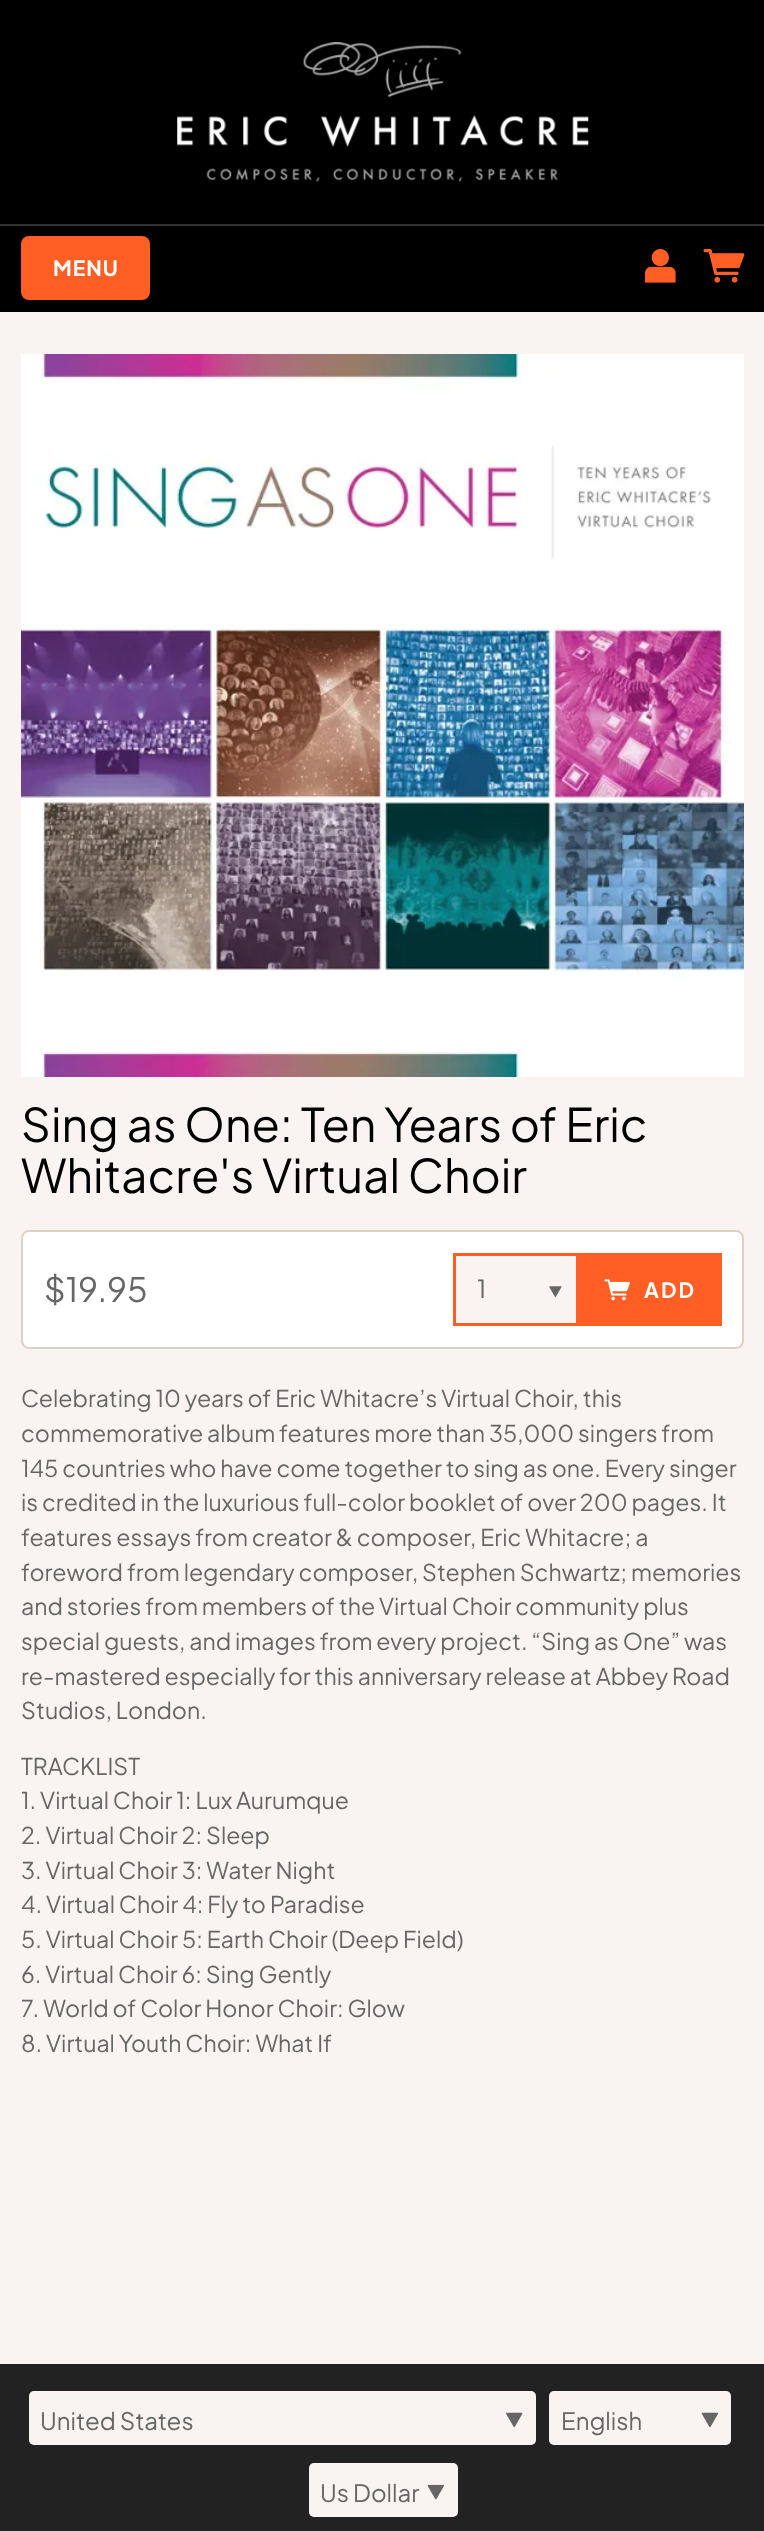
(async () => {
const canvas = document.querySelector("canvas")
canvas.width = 764
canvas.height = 2531
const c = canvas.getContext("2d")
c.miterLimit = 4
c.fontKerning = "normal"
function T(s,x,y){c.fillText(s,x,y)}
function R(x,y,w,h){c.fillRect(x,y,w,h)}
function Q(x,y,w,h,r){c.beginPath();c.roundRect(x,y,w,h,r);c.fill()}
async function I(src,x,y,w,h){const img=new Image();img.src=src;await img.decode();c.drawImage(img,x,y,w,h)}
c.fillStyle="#f9f4f1"
R(0,0,764,2531)
c.fillStyle="#000"
R(0,0,764,224)
await I("1.png",177,42,412,140)
R(0,226,764,86)
c.fillStyle="#323232"
R(0,224,764,2)
c.fillStyle="#ff5f24"
Q(21,236,129,64,8)
c.letterSpacing="1px"
c.font="bold 21px Plus Jakarta Sans"
c.fillStyle="#fff"
T("MENU",53,276)
await I("2.png",645,249,31,34)
await I("3.png",703,249,42,34)
await I("4.png",21,354,723,723)
c.letterSpacing="0px"
c.font="46.25px Plus Jakarta Sans"
c.fillStyle="#000"
T("Sing as One: Ten Years of Eric",21,1142)
T("Whitacre's Virtual Choir",21,1193)
c.fillStyle="#fff"
c.beginPath()
c.roundRect(22,1231,721,117,7)
c.fill()
c.strokeStyle="#dfd1c7"
c.lineWidth=2
c.stroke()
c.font="33.5px Plus Jakarta Sans"
c.fillStyle="#666"
T("$19.95",44,1302)
c.fillStyle="#f9f4f1"
c.beginPath()
c.rect(454.5,1254.5,123,70)
c.fill()
c.strokeStyle="#ff5f24"
c.lineWidth=3
c.stroke()
c.font="25px Plus Jakarta Sans"
c.fillStyle="#666"
T("1",477,1298)
await I("5.png",549,1286,13,11)
c.fillStyle="#ff5f24"
R(579,1253,143,73)
await I("6.png",604,1279,26,22)
c.letterSpacing="2px"
c.font="bold 21px Plus Jakarta Sans"
c.fillStyle="#fff"
T("ADD",644,1298)
c.letterSpacing="0px"
c.font="23.1px Plus Jakarta Sans"
c.fillStyle="#666"
T("Celebrating 10 years of Eric Whitacre’s Virtual Choir, this",21,1407)
T("commemorative album features more than 35,000 singers from",21,1442)
T("145 countries who have come together to sing as one. Every singer",21,1477)
T("is credited in the luxurious full-color booklet of over 200 pages. It",21,1511)
T("features essays from creator & composer, Eric Whitacre; a",21,1546)
T("foreword from legendary composer, Stephen Schwartz; memories",21,1581)
T("and stories from members of the Virtual Choir community plus",21,1615)
T("special guests, and images from every project. “Sing as One” was",21,1650)
T("re-mastered especially for this anniversary release at Abbey Road",21,1685)
T("Studios, London.",21,1719)
T("TRACKLIST",21,1775)
T("1. Virtual Choir 1: Lux Aurumque",21,1809)
T("2. Virtual Choir 2: Sleep",21,1844)
T("3. Virtual Choir 3: Water Night",21,1879)
T("4. Virtual Choir 4: Fly to Paradise",21,1913)
T("5. Virtual Choir 5: Earth Choir (Deep Field)",21,1948)
T("6. Virtual Choir 6: Sing Gently",21,1983)
T("7. World of Color Honor Choir: Glow",21,2017)
T("8. Virtual Youth Choir: What If",21,2052)
c.fillStyle="#222"
R(0,2364,764,167)
c.fillStyle="#f9f4f1"
Q(29,2391,507,54,5)
c.font="24px Plus Jakarta Sans"
c.fillStyle="#666"
T("United States",40,2430)
await I("7.png",506,2412,17,16)
c.fillStyle="#f9f4f1"
Q(549,2391,182,54,5)
c.fillStyle="#666"
T("English",561,2430)
await I("8.png",701,2412,18,16)
c.fillStyle="#f9f4f1"
Q(309,2463,149,54,5)
c.fillStyle="#666"
T("Us Dollar",320,2502)
await I("9.png",427,2484,17,16)
})()
